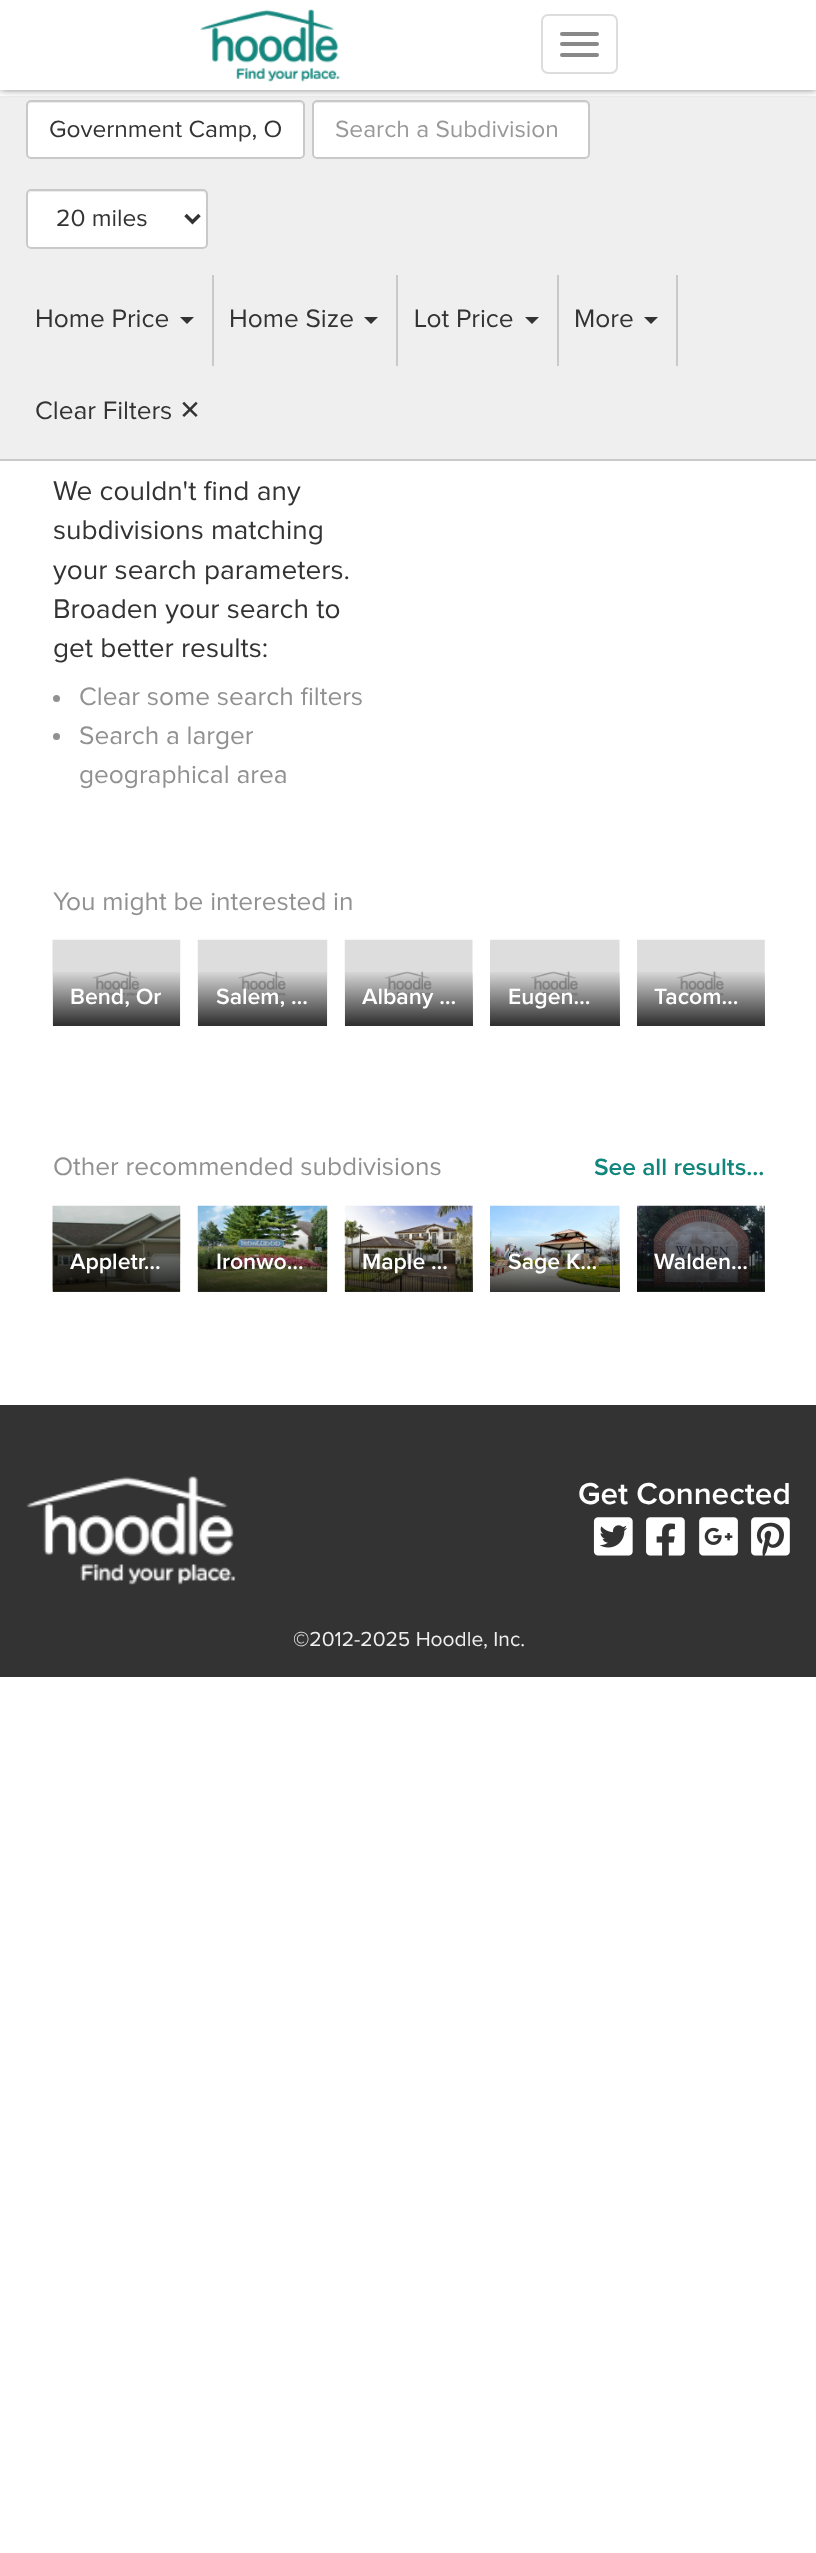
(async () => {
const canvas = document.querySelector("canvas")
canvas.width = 816
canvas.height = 2553
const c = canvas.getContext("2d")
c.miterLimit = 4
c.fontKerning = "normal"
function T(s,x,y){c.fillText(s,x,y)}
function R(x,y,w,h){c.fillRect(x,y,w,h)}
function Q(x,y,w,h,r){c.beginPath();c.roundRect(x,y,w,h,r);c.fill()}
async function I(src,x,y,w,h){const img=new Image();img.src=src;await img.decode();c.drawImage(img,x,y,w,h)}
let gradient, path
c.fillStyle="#fff"
R(0,0,816,2553)
c.fillStyle="#efefef"
R(0,96,816,363)
c.fillStyle="#fff"
Q(26,100,279,59,5)
c.fillStyle="#ececec"
path = new Path2D("M32 103h267c2 0 4 2 4 4c0-3-1-5-4-5h-267c-3 0-4 2-4 5c0-2 2-4 4-4z")
c.fill(path)
c.beginPath()
c.roundRect(27,101,277,57,4)
c.strokeStyle="#c9c9c9"
c.lineWidth=2
c.stroke()
c.fillStyle="#fff"
Q(312,100,278,59,5)
c.fillStyle="#ececec"
path = new Path2D("M317 103h267c2 0 4 2 4 4c0-3-1-5-4-5h-267c-3 0-4 2-4 5c0-2 2-4 4-4z")
c.fill(path)
c.beginPath()
c.roundRect(313,101,276,57,4)
c.stroke()
c.save()
c.beginPath()
c.rect(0,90,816,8)
c.clip()
c.fillStyle="#323232bf"
c.filter="blur(4.5px)"
c.beginPath()
c.rect(0,0,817,89)
c.fill()
c.filter="none"
c.restore()
c.fillStyle="#fff"
R(0,89,816,1)
await I("1.png",200,9,140,73)
c.beginPath()
c.roundRect(542,15,75,58,6)
c.strokeStyle="#ddd"
c.stroke()
c.fillStyle="#888"
Q(560,32,39,4,2)
Q(560,42,39,4,2)
Q(560,53,39,4,2)
c.fillStyle="#c9c9c9"
R(0,459,816,2)
c.font="24.5px Proxima Nova"
c.fillStyle="#333"
T("Government Camp, O",49,137)
c.fillStyle="#999"
T("Search a Subdivision",335,137)
c.fillStyle="#fff"
Q(26,189,182,60,5)
c.fillStyle="#ececec"
path = new Path2D("M32 192h171c2 0 3 2 3 4v50c1-1 1-2 1-3v-48c0-2-2-4-4-4h-171c-2 0-4 2-4 4v1c0-2 2-4 4-4z")
c.fill(path)
c.beginPath()
c.roundRect(27,190,180,58,4)
c.strokeStyle="#c9c9c9"
c.stroke()
path = new Path2D("M185.5 215l7 7l7-7")
c.strokeStyle="#333"
c.lineWidth=3.5
c.stroke(path)
c.fillStyle="#333"
T("20 miles",56,226)
c.fillStyle="#c9c9c9"
R(212,275,2,91)
c.font="26.25px Proxima Nova"
c.fillStyle="#333"
T("Home Price",35,327)
path = new Path2D("M180 317h14l-7 7z")
c.fill(path)
c.fillStyle="#c9c9c9"
R(396,275,2,91)
c.fillStyle="#333"
T("Home Size",229,327)
path = new Path2D("M364 317h14l-7 7z")
c.fill(path)
c.fillStyle="#c9c9c9"
R(557,275,2,91)
c.fillStyle="#333"
T("Lot Price",414,327)
path = new Path2D("M525 317h14l-7 7z")
c.fill(path)
c.fillStyle="#c9c9c9"
R(676,275,2,91)
c.fillStyle="#333"
T("More",574,327)
path = new Path2D("M644 317h14l-7 7z")
c.fill(path)
T("Clear Filters",35,419)
c.font="26.25px DejaVu Sans"
T("✕",179,419)
c.font="28px Proxima Nova"
T("We couldn't find any",53,500)
T("subdivisions matching",53,539)
T("your search parameters.",53,579)
T("Broaden your search to",53,618)
T("get better results:",53,657)
c.fillStyle="#919191"
c.beginPath()
c.arc(56.5,698.5,3.5,0,7)
c.fill()
c.font="26.25px Proxima Nova"
T("Clear some search filters",79,705)
c.beginPath()
c.arc(56.5,736.5,3.5,0,7)
c.fill()
T("Search a larger",79,744)
T("geographical area",79,783)
T("You might be interested in",53,910)
await I("2.png",52,939,129,87)
gradient = c.createLinearGradient(116,970,116,1026)
gradient.addColorStop(0,"#00000000")
gradient.addColorStop(1,"#000000cc")
c.fillStyle = gradient
R(53,972,127,54)
c.font="600 23px Proxima Nova"
c.fillStyle="#fff"
T("Bend, Or",70,1004)
await I("3.png",197,939,131,87)
gradient = c.createLinearGradient(263,970,263,1026)
gradient.addColorStop(0,"#00000000")
gradient.addColorStop(1,"#000000cc")
c.fillStyle = gradient
R(198,972,129,54)
c.fillStyle="#fff"
T("Salem, …",216,1004)
await I("4.png",344,939,129,87)
gradient = c.createLinearGradient(409,970,409,1026)
gradient.addColorStop(0,"#00000000")
gradient.addColorStop(1,"#000000cc")
c.fillStyle = gradient
R(345,972,128,54)
c.fillStyle="#fff"
T("Albany …",362,1004)
await I("5.png",490,939,130,87)
gradient = c.createLinearGradient(555,970,555,1026)
gradient.addColorStop(0,"#00000000")
gradient.addColorStop(1,"#000000cc")
c.fillStyle = gradient
R(490,972,130,54)
c.fillStyle="#fff"
T("Eugen…",508,1004)
await I("6.png",637,939,128,87)
gradient = c.createLinearGradient(701,970,701,1026)
gradient.addColorStop(0,"#00000000")
gradient.addColorStop(1,"#000000cc")
c.fillStyle = gradient
R(637,972,128,54)
c.fillStyle="#fff"
T("Tacom…",654,1004)
c.font="26.25px Proxima Nova"
c.fillStyle="#919191"
T("Other recommended subdivisions",53,1175)
c.font="600 24.5px Proxima Nova"
c.fillStyle="#11867d"
T("See all results...",594,1175)
await I("7.png",52,1205,129,87)
gradient = c.createLinearGradient(116,1234,116,1292)
gradient.addColorStop(0,"#00000000")
gradient.addColorStop(1,"#000000cc")
c.fillStyle = gradient
R(53,1236,127,56)
c.font="600 23px Proxima Nova"
c.fillStyle="#fff"
T("Appletr…",70,1269)
await I("8.png",197,1205,131,87)
gradient = c.createLinearGradient(263,1234,263,1292)
gradient.addColorStop(0,"#00000000")
gradient.addColorStop(1,"#000000cc")
c.fillStyle = gradient
R(198,1236,129,56)
c.fillStyle="#fff"
T("Ironwo…",216,1269)
await I("9.png",344,1205,129,87)
gradient = c.createLinearGradient(409,1234,409,1292)
gradient.addColorStop(0,"#00000000")
gradient.addColorStop(1,"#000000cc")
c.fillStyle = gradient
R(345,1236,128,56)
c.fillStyle="#fff"
T("Maple …",362,1269)
await I("10.png",490,1205,130,87)
gradient = c.createLinearGradient(555,1234,555,1292)
gradient.addColorStop(0,"#00000000")
gradient.addColorStop(1,"#000000cc")
c.fillStyle = gradient
R(490,1236,130,56)
c.fillStyle="#fff"
T("Sage K…",508,1269)
await I("11.png",637,1205,128,87)
gradient = c.createLinearGradient(701,1234,701,1292)
gradient.addColorStop(0,"#00000000")
gradient.addColorStop(1,"#000000cc")
c.fillStyle = gradient
R(637,1236,128,56)
c.fillStyle="#fff"
T("Walden…",654,1269)
c.fillStyle="#333"
R(0,1405,816,272)
await I("12.png",26,1475,210,110)
c.font="600 31.5px Proxima Nova"
c.fillStyle="#fff"
T("Get Connected",578,1504)
await I("13.png",593,1517,197,39)
c.font="21px Proxima Nova"
c.fillStyle="#efefef"
T("©2012-2025 Hoodle, Inc.",293,1646)
})()
